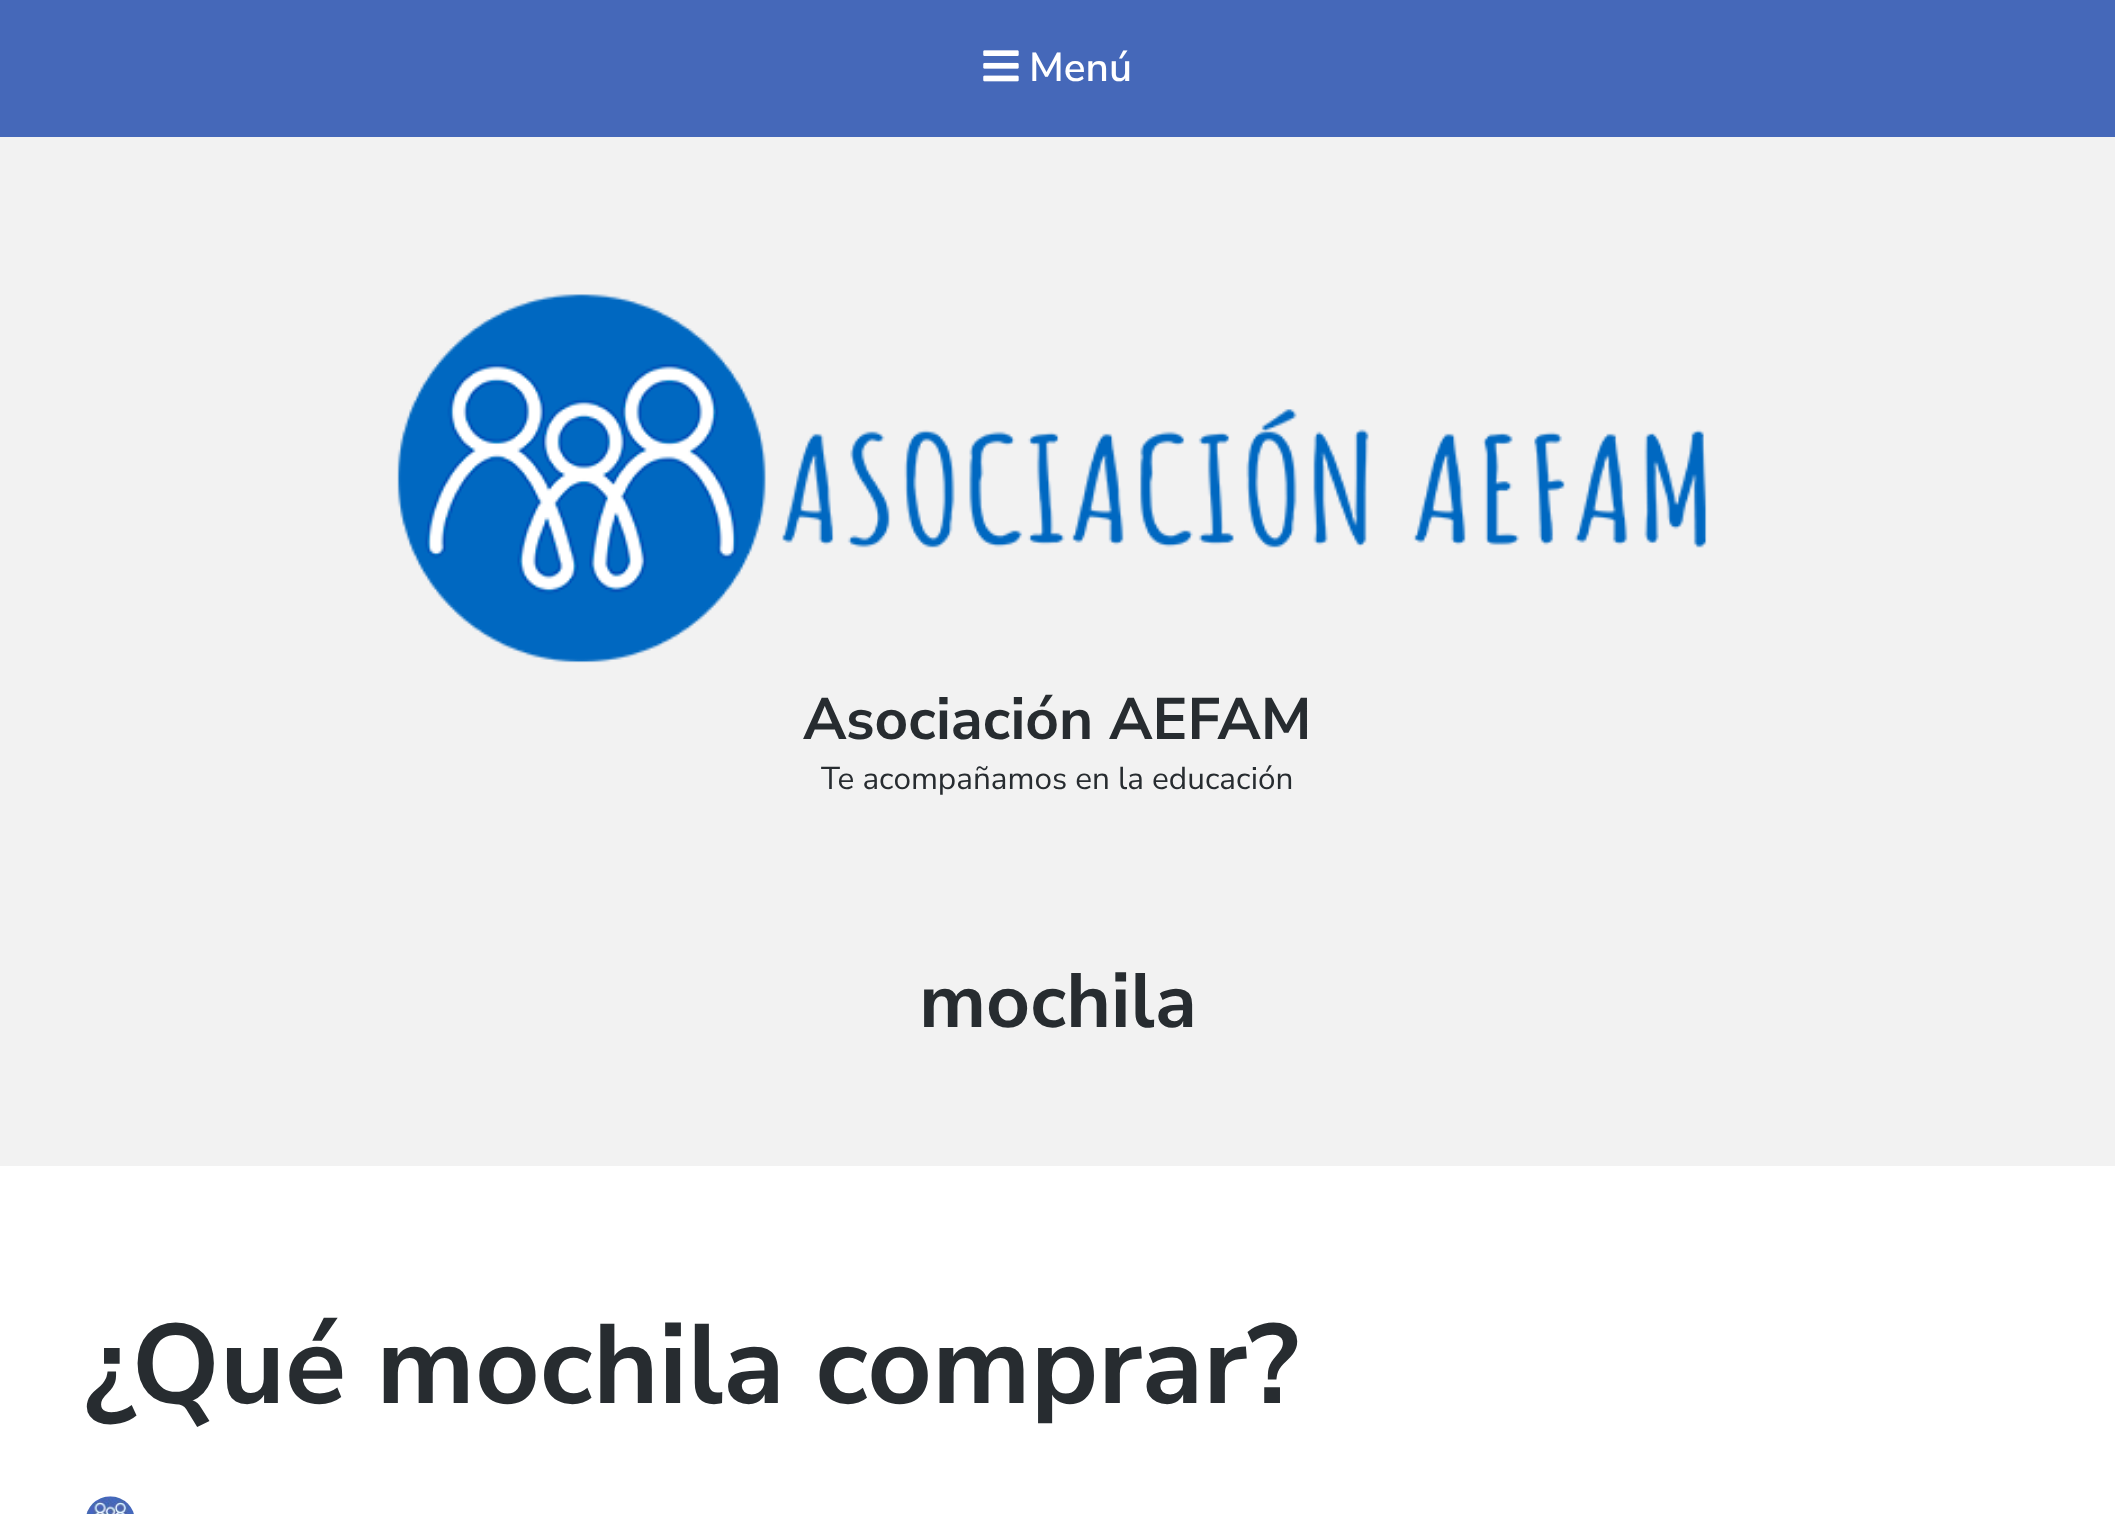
(async () => {
const canvas = document.querySelector("canvas")
canvas.width = 2115
canvas.height = 1514
const c = canvas.getContext("2d")
c.miterLimit = 4
c.fontKerning = "normal"
function T(s,x,y){c.fillText(s,x,y)}
function R(x,y,w,h){c.fillRect(x,y,w,h)}
async function I(src,x,y,w,h){const img=new Image();img.src=src;await img.decode();c.drawImage(img,x,y,w,h)}
c.fillStyle="#fff"
R(0,0,2115,1514)
c.fillStyle="#f2f2f2"
R(0,137,2115,1029)
c.fillStyle="#4568b9"
R(0,0,2115,137)
await I("1.png",983,50,36,32)
c.font="600 40.5px Nunito Sans"
c.fillStyle="#fff"
T("Menú",1029,81)
await I("2.png",397,294,1310,369)
c.font="bold 58.5px Nunito Sans"
c.fillStyle="#272c30"
T("Asociación AEFAM",803,739)
c.font="31.5px Nunito Sans"
T("Te acompañamos en la educación",821,789)
c.font="bold 76.5px Nunito Sans"
T("mochila",919,1027)
c.font="bold 112.5px Nunito Sans"
T("¿Qué mochila comprar?",85,1403)
await I("3.png",86,1496,48,18)
})()
